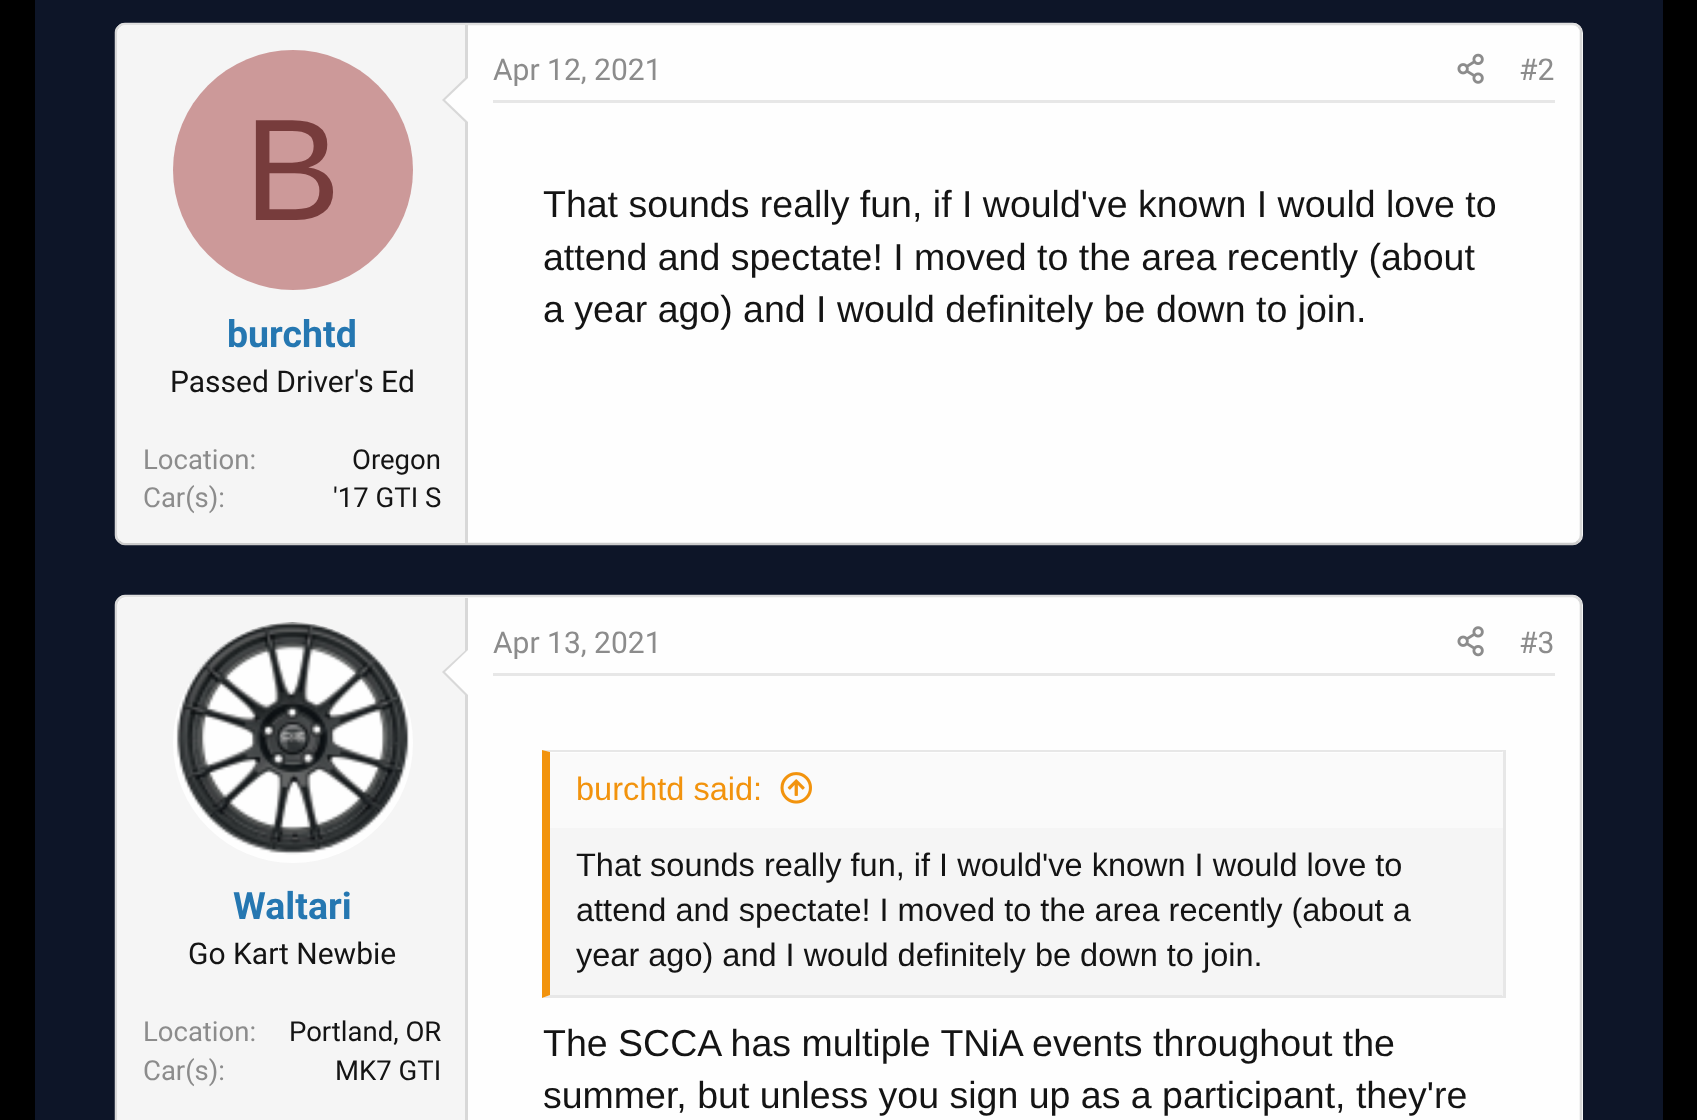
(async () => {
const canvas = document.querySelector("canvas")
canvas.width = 1697
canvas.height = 1120
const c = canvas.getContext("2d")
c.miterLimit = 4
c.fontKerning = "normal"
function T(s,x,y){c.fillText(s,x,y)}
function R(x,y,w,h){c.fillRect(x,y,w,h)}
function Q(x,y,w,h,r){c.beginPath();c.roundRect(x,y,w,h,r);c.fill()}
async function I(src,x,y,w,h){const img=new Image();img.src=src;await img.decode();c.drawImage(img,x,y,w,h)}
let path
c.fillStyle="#000"
R(0,0,1697,1120)
c.fillStyle="#0d1528"
R(35,0,1628,1120)
c.fillStyle="#fefefe"
Q(115,23,1468,522,10)
path = new Path2D("M119 26.5c1.5-2 3.5-2.5 6-2.5h1447.5c2.5 0 4.5 .5 6 2.5")
c.strokeStyle="#dfdfdf"
c.lineWidth=2.5
c.stroke(path)
path = new Path2D("M1578.5 26.5c2 1.5 2.5 3.5 2.5 6v502.5c0 2.5-.5 4.5-2.5 6")
c.strokeStyle="#d8d8d8"
c.stroke(path)
path = new Path2D("M1578.5 541c-1.5 2-3.5 3-6 3h-1447.5c-2.5 0-4.5-1-6-3")
c.strokeStyle="#cbcbcb"
c.stroke(path)
path = new Path2D("M119 541c-2-1.5-3-3.5-3-6v-502.5c0-2.5 1-4.5 3-6")
c.strokeStyle="#d8d8d8"
c.stroke(path)
c.fillStyle="#f5f5f5"
c.beginPath()
c.roundRect(118,25,350,518,[8,0,0,8])
c.fill()
c.fillStyle="#d8d8d8"
R(465,25,3,518)
path = new Path2D("M468 75v50l-26-25z")
c.fill(path)
c.fillStyle="#fefefe"
path = new Path2D("M468 78v44l-23-22z")
c.fill(path)
c.fillStyle="#c99"
c.beginPath()
c.arc(293,170,120,0,7)
c.fill()
c.font="145px Liberation Sans"
c.fillStyle="#773c3c"
T("B",244,220)
c.font="bold 37.5px Roboto"
c.fillStyle="#2577b1"
T("burchtd",227,347)
c.font="30px Roboto"
c.fillStyle="#141414"
T("Passed Driver's Ed",170,392)
c.font="27.5px Roboto"
c.fillStyle="#8c8c8c"
T("Location:",143,469)
c.fillStyle="#141414"
T("Oregon",352,469)
c.fillStyle="#8c8c8c"
T("Car(s):",143,507)
c.fillStyle="#141414"
T("'17 GTI S",333,507)
c.fillStyle="#e7e7e7"
R(493,100,1062,3)
c.font="30px Roboto"
c.fillStyle="#8c8c8c"
T("Apr 12, 2021",493,80)
await I("1.png",1457,53,27,31)
T("#2",1519,80)
c.font="37.5px Liberation Sans"
c.fillStyle="#141414"
T("That sounds really fun, if I would've known I would love to",543,217)
T("attend and spectate! I moved to the area recently (about",543,270)
T("a year ago) and I would definitely be down to join.",543,322)
c.fillStyle="#fefefe"
Q(115,595,1468,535,10)
path = new Path2D("M119 599c1.5-2 3.5-3 6-3h1447.5c2.5 0 4.5 1 6 3")
c.strokeStyle="#dfdfdf"
c.stroke(path)
path = new Path2D("M1578.5 599c2 1.5 2.5 3.5 2.5 6v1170c0 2.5-.5 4.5-2.5 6")
c.strokeStyle="#d8d8d8"
c.stroke(path)
path = new Path2D("M119 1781c-2-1.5-3-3.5-3-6v-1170c0-2.5 1-4.5 3-6")
c.stroke(path)
c.fillStyle="#f5f5f5"
path = new Path2D("M126 598h342v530h-342c-4.5 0-8-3.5-8-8v-514c0-4.5 3.5-8 8-8z")
c.fill(path)
c.fillStyle="#d8d8d8"
R(465,598,3,522)
c.fillStyle="#fefefe"
c.beginPath()
c.arc(293,743,120,0,7)
c.fill()
await I("2.png",176,622,233,233)
c.fillStyle="#d8d8d8"
path = new Path2D("M468 648v50l-26-26z")
c.fill(path)
c.fillStyle="#fefefe"
path = new Path2D("M468 650v45l-23-23z")
c.fill(path)
c.font="bold 37.5px Roboto"
c.fillStyle="#2577b1"
T("Waltari",233,919)
c.font="30px Roboto"
c.fillStyle="#141414"
T("Go Kart Newbie",188,964)
c.font="27.5px Roboto"
c.fillStyle="#8c8c8c"
T("Location:",143,1041)
c.fillStyle="#141414"
T("Portland, OR",289,1041)
c.fillStyle="#8c8c8c"
T("Car(s):",143,1080)
c.fillStyle="#141414"
T("MK7 GTI",335,1080)
c.fillStyle="#e7e7e7"
R(493,673,1062,3)
c.font="30px Roboto"
c.fillStyle="#8c8c8c"
T("Apr 13, 2021",493,653)
await I("3.png",1457,626,27,31)
T("#3",1519,653)
c.fillStyle="#f5f5f5"
R(550,828,953,167)
c.fillStyle="#e7e7e7"
path = new Path2D("M542 750h963l-3 2h-952z")
c.fill(path)
R(1503,750,3,248)
path = new Path2D("M1505 998h-963l8-3h952z")
c.fill(path)
c.fillStyle="#f2930d"
path = new Path2D("M542 998v-248l8 2v243z")
c.fill(path)
c.fillStyle="#fafafa"
R(550,753,953,75)
c.font="32.5px Liberation Sans"
c.fillStyle="#f2930d"
T("burchtd said:",576,800)
await I("4.png",780,772,32,32)
c.fillStyle="#141414"
T("That sounds really fun, if I would've known I would love to",576,876)
T("attend and spectate! I moved to the area recently (about a",576,921)
T("year ago) and I would definitely be down to join.",576,966)
c.font="37.5px Liberation Sans"
T("The SCCA has multiple TNiA events throughout the",543,1056)
T("summer, but unless you sign up as a participant, they're",543,1108)
})()
